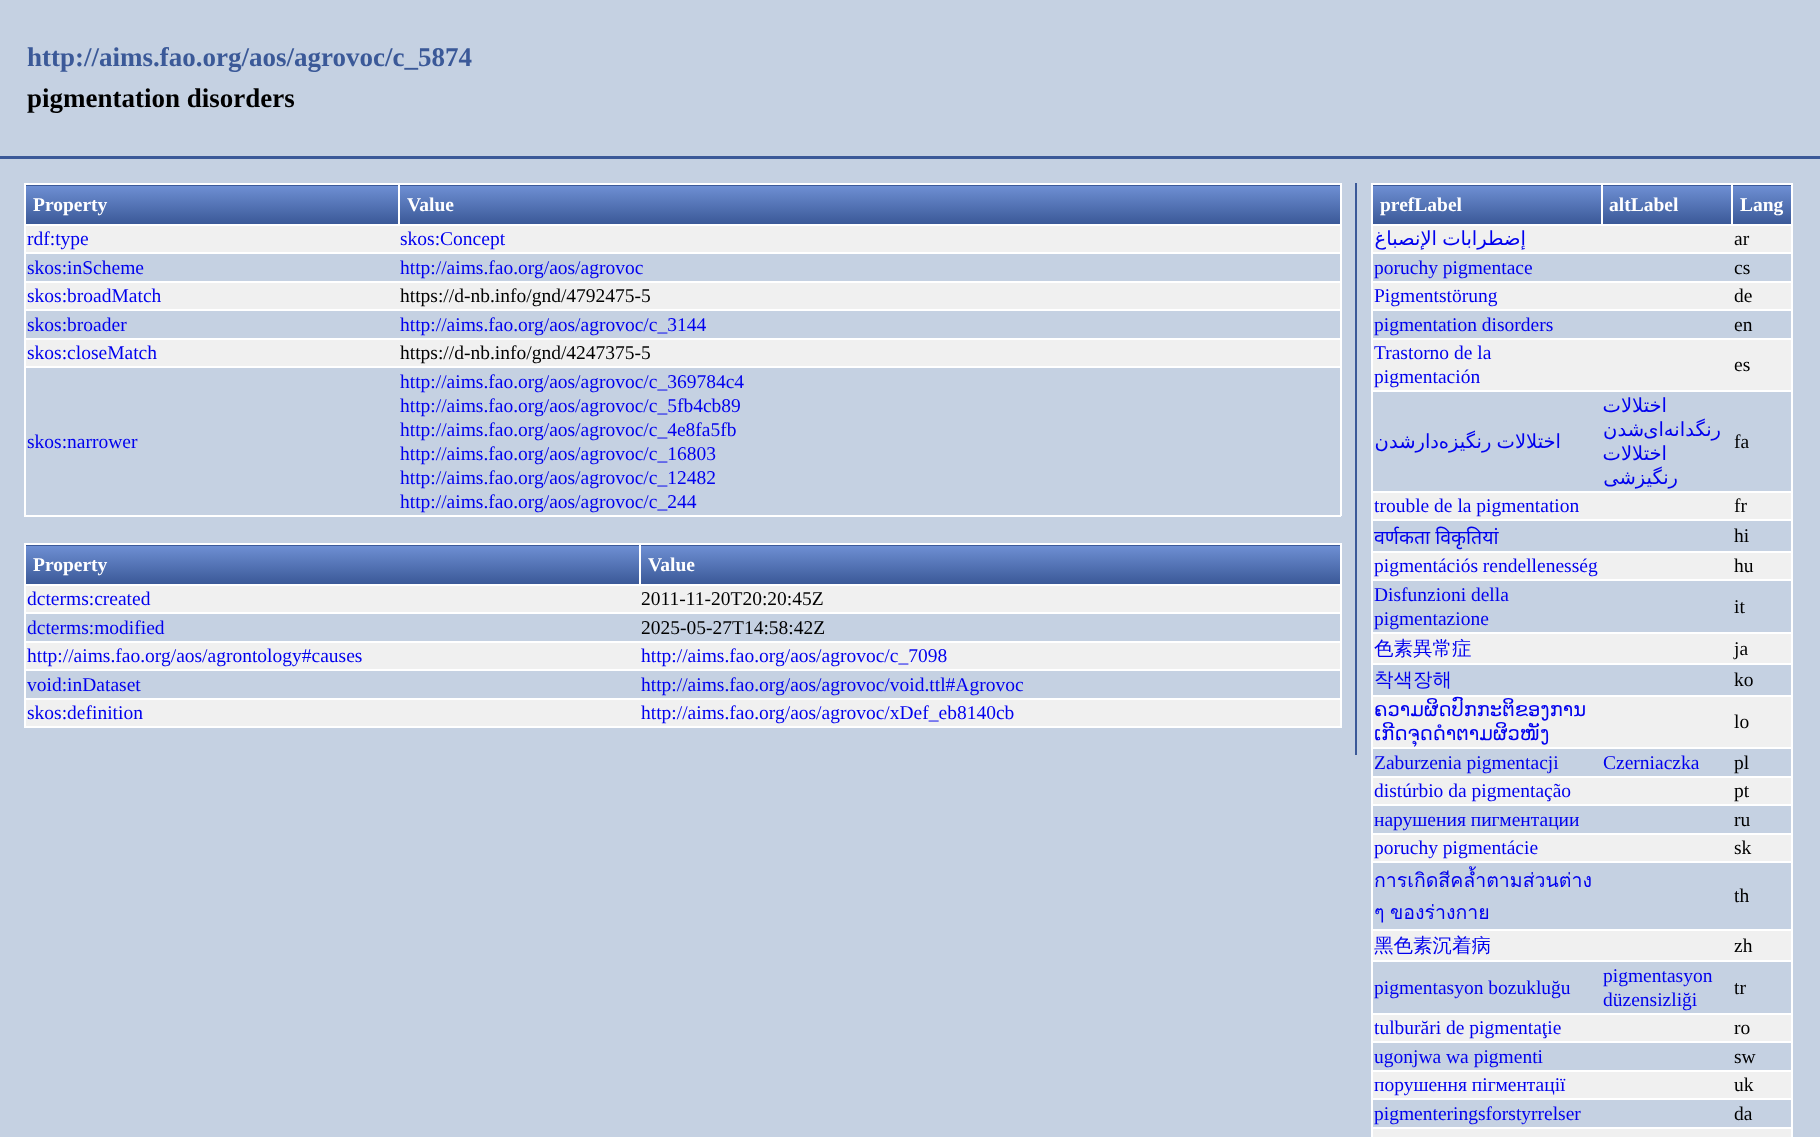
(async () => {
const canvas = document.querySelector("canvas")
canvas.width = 1820
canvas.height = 1137
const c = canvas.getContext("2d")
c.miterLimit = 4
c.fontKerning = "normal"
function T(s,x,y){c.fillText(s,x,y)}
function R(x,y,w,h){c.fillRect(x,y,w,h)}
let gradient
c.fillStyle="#c5d1e2"
R(0,0,1820,1137)
c.fillStyle="#3b5998"
R(0,156,1820,3)
c.font="bold 27px Liberation Serif"
T("http://aims.fao.org/aos/agrovoc/c_5874",27,66)
c.fillStyle="#000"
T("pigmentation disorders",27,107)
c.fillStyle="#3b5998"
R(1355,183,2,572)
c.fillStyle="#fff"
R(24,183,1317,2)
R(1340,183,2,333)
R(24,515,1317,2)
R(24,183,2,333)
gradient = c.createLinearGradient(212,148,212,186)
gradient.addColorStop(0,"#6e8fd3")
gradient.addColorStop(1,"#3b5998")
c.fillStyle = gradient
R(26,185,373,1)
gradient = c.createLinearGradient(212,186,212,224)
gradient.addColorStop(0,"#6e8fd3")
gradient.addColorStop(1,"#3b5998")
c.fillStyle = gradient
R(26,186,372,38)
c.font="bold 19.5px Liberation Serif"
c.fillStyle="#fff"
T("Property",33,211)
gradient = c.createLinearGradient(869,148,869,186)
gradient.addColorStop(0,"#6e8fd3")
gradient.addColorStop(1,"#3b5998")
c.fillStyle = gradient
R(399,185,941,1)
gradient = c.createLinearGradient(869,186,869,224)
gradient.addColorStop(0,"#6e8fd3")
gradient.addColorStop(1,"#3b5998")
c.fillStyle = gradient
R(400,186,940,38)
c.fillStyle="#fff"
R(24,224,1317,2)
R(398,183,2,42)
T("Value",407,211)
c.fillStyle="#f0f0f0"
R(26,226,1314,26)
c.font="19.5px Liberation Serif"
c.fillStyle="#00e"
T("rdf:type",27,245)
T("skos:Concept",400,245)
c.fillStyle="#fff"
R(24,252,1317,2)
c.fillStyle="#00e"
T("skos:inScheme",27,274)
T("http://aims.fao.org/aos/agrovoc",400,274)
c.fillStyle="#f0f0f0"
R(26,283,1314,26)
c.fillStyle="#fff"
R(24,281,1317,2)
c.fillStyle="#00e"
T("skos:broadMatch",27,302)
c.fillStyle="#000"
T("https://d-nb.info/gnd/4792475-5",400,302)
c.fillStyle="#fff"
R(24,309,1317,2)
c.fillStyle="#00e"
T("skos:broader",27,331)
T("http://aims.fao.org/aos/agrovoc/c_3144",400,331)
c.fillStyle="#f0f0f0"
R(26,340,1314,26)
c.fillStyle="#fff"
R(24,338,1317,2)
c.fillStyle="#00e"
T("skos:closeMatch",27,359)
c.fillStyle="#000"
T("https://d-nb.info/gnd/4247375-5",400,359)
c.fillStyle="#fff"
R(24,366,1317,2)
c.fillStyle="#00e"
T("skos:narrower",27,448)
T("http://aims.fao.org/aos/agrovoc/c_369784c4",400,388)
T("http://aims.fao.org/aos/agrovoc/c_5fb4cb89",400,412)
T("http://aims.fao.org/aos/agrovoc/c_4e8fa5fb",400,436)
T("http://aims.fao.org/aos/agrovoc/c_16803",400,460)
T("http://aims.fao.org/aos/agrovoc/c_12482",400,484)
T("http://aims.fao.org/aos/agrovoc/c_244",400,508)
c.fillStyle="#fff"
R(24,543,1317,2)
R(1340,543,2,185)
R(24,726,1317,2)
R(24,543,2,185)
gradient = c.createLinearGradient(332,509,332,546)
gradient.addColorStop(0,"#6e8fd3")
gradient.addColorStop(1,"#3b5998")
c.fillStyle = gradient
R(26,545,613,1)
gradient = c.createLinearGradient(332,546,332,584)
gradient.addColorStop(0,"#6e8fd3")
gradient.addColorStop(1,"#3b5998")
c.fillStyle = gradient
R(26,546,613,38)
c.font="bold 19.5px Liberation Serif"
c.fillStyle="#fff"
T("Property",33,571)
gradient = c.createLinearGradient(989,509,989,546)
gradient.addColorStop(0,"#6e8fd3")
gradient.addColorStop(1,"#3b5998")
c.fillStyle = gradient
R(639,545,701,1)
gradient = c.createLinearGradient(989,546,989,584)
gradient.addColorStop(0,"#6e8fd3")
gradient.addColorStop(1,"#3b5998")
c.fillStyle = gradient
R(641,546,699,38)
c.fillStyle="#fff"
R(24,584,1317,2)
R(639,543,2,42)
T("Value",648,571)
c.fillStyle="#f0f0f0"
R(26,586,1314,26)
c.font="19.5px Liberation Serif"
c.fillStyle="#00e"
T("dcterms:created",27,605)
c.fillStyle="#000"
T("2011-11-20T20:20:45Z",641,605)
c.fillStyle="#fff"
R(24,612,1317,2)
c.fillStyle="#00e"
T("dcterms:modified",27,634)
c.fillStyle="#000"
T("2025-05-27T14:58:42Z",641,634)
c.fillStyle="#f0f0f0"
R(26,643,1314,26)
c.fillStyle="#fff"
R(24,641,1317,2)
c.fillStyle="#00e"
T("http://aims.fao.org/aos/agrontology#causes",27,662)
T("http://aims.fao.org/aos/agrovoc/c_7098",641,662)
c.fillStyle="#fff"
R(24,669,1317,2)
c.fillStyle="#00e"
T("void:inDataset",27,691)
T("http://aims.fao.org/aos/agrovoc/void.ttl#Agrovoc",641,691)
c.fillStyle="#f0f0f0"
R(26,700,1314,26)
c.fillStyle="#fff"
R(24,698,1317,2)
c.fillStyle="#00e"
T("skos:definition",27,719)
T("http://aims.fao.org/aos/agrovoc/xDef_eb8140cb",641,719)
c.fillStyle="#fff"
R(1371,183,422,2)
gradient = c.createLinearGradient(1763,149,1763,186)
gradient.addColorStop(0,"#6e8fd3")
gradient.addColorStop(1,"#3b5998")
c.fillStyle = gradient
R(1733,185,60,1)
c.fillStyle="#fff"
R(1791,183,2,954)
R(1371,183,2,954)
gradient = c.createLinearGradient(1487,148,1487,186)
gradient.addColorStop(0,"#6e8fd3")
gradient.addColorStop(1,"#3b5998")
c.fillStyle = gradient
R(1373,185,228,1)
gradient = c.createLinearGradient(1487,186,1487,224)
gradient.addColorStop(0,"#6e8fd3")
gradient.addColorStop(1,"#3b5998")
c.fillStyle = gradient
R(1373,186,228,38)
c.font="bold 19.5px Liberation Serif"
c.fillStyle="#fff"
T("prefLabel",1380,211)
gradient = c.createLinearGradient(1667,149,1667,186)
gradient.addColorStop(0,"#6e8fd3")
gradient.addColorStop(1,"#3b5998")
c.fillStyle = gradient
R(1601,185,132,1)
gradient = c.createLinearGradient(1667,186,1667,224)
gradient.addColorStop(0,"#6e8fd3")
gradient.addColorStop(1,"#3b5998")
c.fillStyle = gradient
R(1603,186,128,38)
c.fillStyle="#fff"
R(1371,224,422,2)
R(1601,183,2,42)
T("altLabel",1609,211)
gradient = c.createLinearGradient(1763,186,1763,224)
gradient.addColorStop(0,"#6e8fd3")
gradient.addColorStop(1,"#3b5998")
c.fillStyle = gradient
R(1733,186,58,38)
c.fillStyle="#fff"
R(1731,183,2,42)
T("Lang",1740,211)
c.fillStyle="#f0f0f0"
R(1373,226,418,26)
c.wordSpacing="-1px"
c.direction="rtl"
c.font="19.5px DejaVu Sans"
c.fillStyle="#00e"
T("إضطرابات الإنصباغ",1526,245)
c.wordSpacing="0px"
c.direction="ltr"
c.font="19.5px Liberation Serif"
c.fillStyle="#000"
T("ar",1734,245)
c.fillStyle="#fff"
R(1371,252,422,2)
c.fillStyle="#00e"
T("poruchy pigmentace",1374,274)
c.fillStyle="#000"
T("cs",1734,274)
c.fillStyle="#f0f0f0"
R(1373,283,418,26)
c.fillStyle="#fff"
R(1371,281,422,2)
c.fillStyle="#00e"
T("Pigmentstörung",1374,302)
c.fillStyle="#000"
T("de",1734,302)
c.fillStyle="#fff"
R(1371,309,422,2)
c.fillStyle="#00e"
T("pigmentation disorders",1374,331)
c.fillStyle="#000"
T("en",1734,331)
c.fillStyle="#f0f0f0"
R(1373,340,418,50)
c.fillStyle="#fff"
R(1371,338,422,2)
c.fillStyle="#00e"
T("Trastorno de la",1374,359)
T("pigmentación",1374,383)
c.fillStyle="#000"
T("es",1734,371)
c.fillStyle="#fff"
R(1371,390,422,2)
c.direction="rtl"
c.font="19.5px DejaVu Sans"
c.fillStyle="#00e"
T("دارشدن",1439,448)
c.wordSpacing="-1px"
T("اختلالات رنگیزه",1561,448)
c.wordSpacing="0px"
T("اختلالات",1667,412)
T("شدن",1644,436)
T("ای",1664,436)
T("رنگدانه",1721,436)
T("اختلالات",1667,460)
T("رنگیزشی",1678,484)
c.direction="ltr"
c.font="19.5px Liberation Serif"
c.fillStyle="#000"
T("fa",1734,448)
c.fillStyle="#f0f0f0"
R(1373,493,418,26)
c.fillStyle="#fff"
R(1371,491,422,2)
c.fillStyle="#00e"
T("trouble de la pigmentation",1374,512)
c.fillStyle="#000"
T("fr",1734,512)
c.fillStyle="#fff"
R(1371,519,422,2)
c.font="19.5px Noto Sans"
c.fillStyle="#00e"
T("वर्णकता विकृतियां",1374,544)
c.font="19.5px Liberation Serif"
c.fillStyle="#000"
T("hi",1734,542)
c.fillStyle="#f0f0f0"
R(1373,553,418,26)
c.fillStyle="#fff"
R(1371,551,422,2)
c.fillStyle="#00e"
T("pigmentációs rendellenesség",1374,572)
c.fillStyle="#000"
T("hu",1734,572)
c.fillStyle="#fff"
R(1371,579,422,2)
c.fillStyle="#00e"
T("Disfunzioni della",1374,601)
T("pigmentazione",1374,625)
c.fillStyle="#000"
T("it",1734,613)
c.fillStyle="#f0f0f0"
R(1373,634,418,29)
c.fillStyle="#fff"
R(1371,632,422,2)
c.font="500 19.5px WenQuanYi Zen Hei"
c.fillStyle="#00e"
T("色素異常症",1374,655)
c.font="19.5px Liberation Serif"
c.fillStyle="#000"
T("ja",1734,655)
c.fillStyle="#fff"
R(1371,663,422,2)
c.font="500 19.5px WenQuanYi Zen Hei"
c.fillStyle="#00e"
T("착색장해",1374,686)
c.font="19.5px Liberation Serif"
c.fillStyle="#000"
T("ko",1734,686)
c.fillStyle="#f0f0f0"
R(1373,697,418,50)
c.fillStyle="#fff"
R(1371,695,422,2)
c.font="19.5px DejaVu Sans"
c.fillStyle="#00e"
T("ຄວາມຜິດປົກກະຕິຂອງການ",1374,716)
T("ເກີດຈຸດດຳຕາມຜິວໜັງ",1374,740)
c.font="19.5px Liberation Serif"
c.fillStyle="#000"
T("lo",1734,728)
c.fillStyle="#fff"
R(1371,747,422,2)
c.fillStyle="#00e"
T("Zaburzenia pigmentacji",1374,769)
T("Czerniaczka",1603,769)
c.fillStyle="#000"
T("pl",1734,769)
c.fillStyle="#f0f0f0"
R(1373,778,418,26)
c.fillStyle="#fff"
R(1371,776,422,2)
c.fillStyle="#00e"
T("distúrbio da pigmentação",1374,797)
c.fillStyle="#000"
T("pt",1734,797)
c.fillStyle="#fff"
R(1371,804,422,2)
c.fillStyle="#00e"
T("нарушения пигментации",1374,826)
c.fillStyle="#000"
T("ru",1734,826)
c.fillStyle="#f0f0f0"
R(1373,835,418,26)
c.fillStyle="#fff"
R(1371,833,422,2)
c.fillStyle="#00e"
T("poruchy pigmentácie",1374,854)
c.fillStyle="#000"
T("sk",1734,854)
c.fillStyle="#fff"
R(1371,861,422,2)
c.font="19.5px Loma"
c.fillStyle="#00e"
T("การเกิดสีคล้ำตามส่วนต่าง",1374,887)
c.wordSpacing="-1px"
T("ๆ ของร่างกาย",1374,919)
c.wordSpacing="0px"
c.font="19.5px Liberation Serif"
c.fillStyle="#000"
T("th",1734,902)
c.fillStyle="#f0f0f0"
R(1373,931,418,29)
c.fillStyle="#fff"
R(1371,929,422,2)
c.font="500 19.5px WenQuanYi Zen Hei"
c.fillStyle="#00e"
T("黑色素沉着病",1374,952)
c.font="19.5px Liberation Serif"
c.fillStyle="#000"
T("zh",1734,952)
c.fillStyle="#fff"
R(1371,960,422,2)
c.fillStyle="#00e"
T("pigmentasyon bozukluğu",1374,994)
T("pigmentasyon",1603,982)
T("düzensizliği",1603,1006)
c.fillStyle="#000"
T("tr",1734,994)
c.fillStyle="#f0f0f0"
R(1373,1015,418,26)
c.fillStyle="#fff"
R(1371,1013,422,2)
c.fillStyle="#00e"
T("tulburări de pigmentaţie",1374,1034)
c.fillStyle="#000"
T("ro",1734,1034)
c.fillStyle="#fff"
R(1371,1041,422,2)
c.fillStyle="#00e"
T("ugonjwa wa pigmenti",1374,1063)
c.fillStyle="#000"
T("sw",1734,1063)
c.fillStyle="#f0f0f0"
R(1373,1072,418,26)
c.fillStyle="#fff"
R(1371,1070,422,2)
c.fillStyle="#00e"
T("порушення пігментації",1374,1091)
c.fillStyle="#000"
T("uk",1734,1091)
c.fillStyle="#fff"
R(1371,1098,422,2)
c.fillStyle="#00e"
T("pigmenteringsforstyrrelser",1374,1120)
c.fillStyle="#000"
T("da",1734,1120)
c.fillStyle="#f0f0f0"
R(1373,1129,418,8)
c.fillStyle="#fff"
R(1371,1127,422,2)
})()
